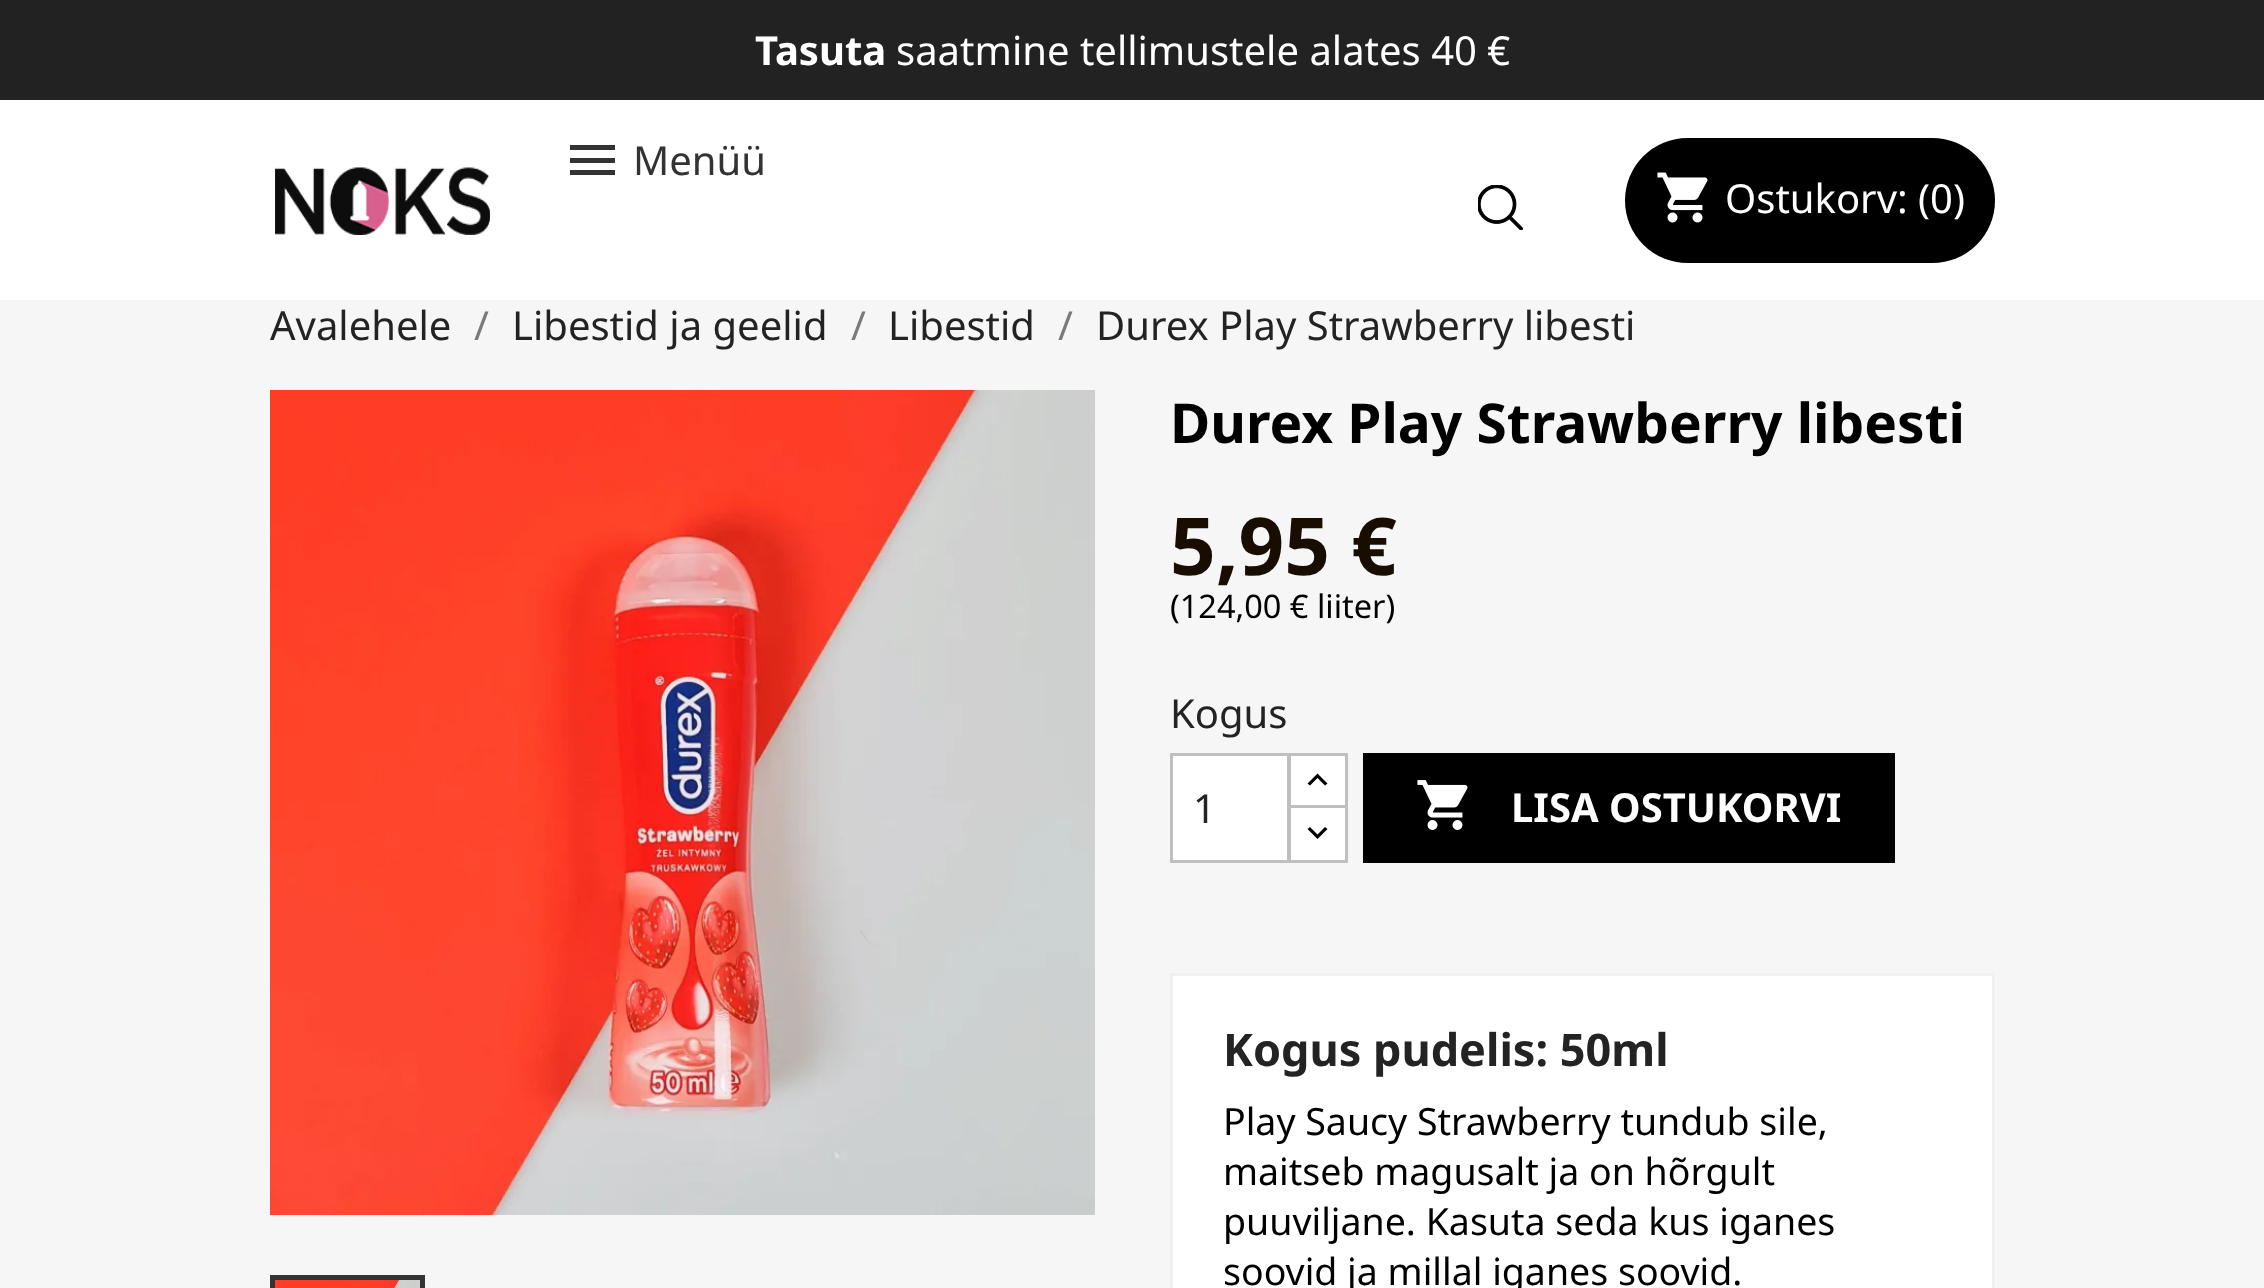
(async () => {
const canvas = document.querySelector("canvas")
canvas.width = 2264
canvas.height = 1288
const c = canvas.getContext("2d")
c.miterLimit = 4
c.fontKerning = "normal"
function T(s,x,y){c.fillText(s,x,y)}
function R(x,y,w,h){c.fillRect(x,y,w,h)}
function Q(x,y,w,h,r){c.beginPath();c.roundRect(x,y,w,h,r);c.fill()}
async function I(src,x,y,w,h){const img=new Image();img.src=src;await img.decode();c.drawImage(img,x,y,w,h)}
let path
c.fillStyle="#fff"
R(0,0,2264,1288)
c.fillStyle="#222"
R(0,0,2264,100)
c.font="bold 40px Noto Sans"
c.fillStyle="#fff"
T("Tasuta",755,65)
c.font="40px Noto Sans"
T("saatmine tellimustele alates 40 €",896,65)
c.fillStyle="#333"
R(570,145,45,5)
R(570,158,45,5)
R(570,170,45,5)
T("Menüü",633,175)
await I("1.png",275,167,215,68)
await I("2.png",1478,185,45,45)
c.fillStyle="#000"
Q(1625,138,370,125,62.5)
await I("3.png",1657,172,51,51)
c.fillStyle="#fff"
T("Ostukorv: (0)",1725,213)
c.fillStyle="#f6f6f6"
R(0,300,2264,988)
c.fillStyle="#232323"
T("Avalehele",270,340)
c.fillStyle="#7a7a7a"
T("/",474,340)
c.fillStyle="#232323"
T("Libestid ja geelid",512,340)
c.fillStyle="#7a7a7a"
T("/",851,340)
c.fillStyle="#232323"
T("Libestid",888,340)
c.fillStyle="#7a7a7a"
T("/",1058,340)
c.fillStyle="#232323"
T("Durex Play Strawberry libesti",1096,340)
await I("4.png",270,390,825,825)
c.strokeStyle="#333"
c.lineWidth=5
c.strokeRect(272.5,1277.5,150,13)
await I("5.png",275,1280,145,8)
c.font="bold 55px Noto Sans"
c.fillStyle="#000"
T("Durex Play Strawberry libesti",1170,443)
c.font="bold 80px Noto Sans"
c.fillStyle="#170d00"
T("5,95 €",1170,575)
c.font="32.5px Noto Sans"
c.fillStyle="#000"
T("(124,00 € liiter)",1170,618)
c.font="40px Noto Sans"
c.fillStyle="#232323"
T("Kogus",1170,728)
c.fillStyle="#fff"
R(1291,756,54,49)
c.strokeStyle="#bfbfbf"
c.lineWidth=3
c.strokeRect(1289.5,754.5,57,54)
c.beginPath()
c.rect(1289.5,806.5,57,55)
c.fill()
c.stroke()
c.beginPath()
c.rect(1171.5,754.5,117,107)
c.fill()
c.stroke()
c.fillStyle="#232323"
T("1",1193,823)
c.fillStyle="#000"
path = new Path2D("M1317.5 773.5l10 10l-2.5 2l-7.5-7.5l-7.5 7.5l-2.5-2z")
c.fill(path)
path = new Path2D("M1325 827l2.5 2l-10 10l-10-10l2.5-2l7.5 7.5z")
c.fill(path)
R(1363,753,532,110)
await I("6.png",1417,780,51,50)
c.font="bold 40px Noto Sans"
c.fillStyle="#fff"
T("LISA OSTUKORVI",1511,822)
c.beginPath()
c.rect(1171.5,974.5,822,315)
c.fill()
c.strokeStyle="#f1f0f0"
c.stroke()
c.font="bold 45px Noto Sans"
c.fillStyle="#232323"
T("Kogus pudelis: 50ml",1223,1066)
c.font="37.5px Noto Sans"
c.fillStyle="#000"
T("Play Saucy Strawberry tundub sile,",1223,1135)
T("maitseb magusalt ja on hõrgult",1223,1185)
T("puuviljane. Kasuta seda kus iganes",1223,1235)
T("soovid ja millal iganes soovid.",1223,1285)
})()
